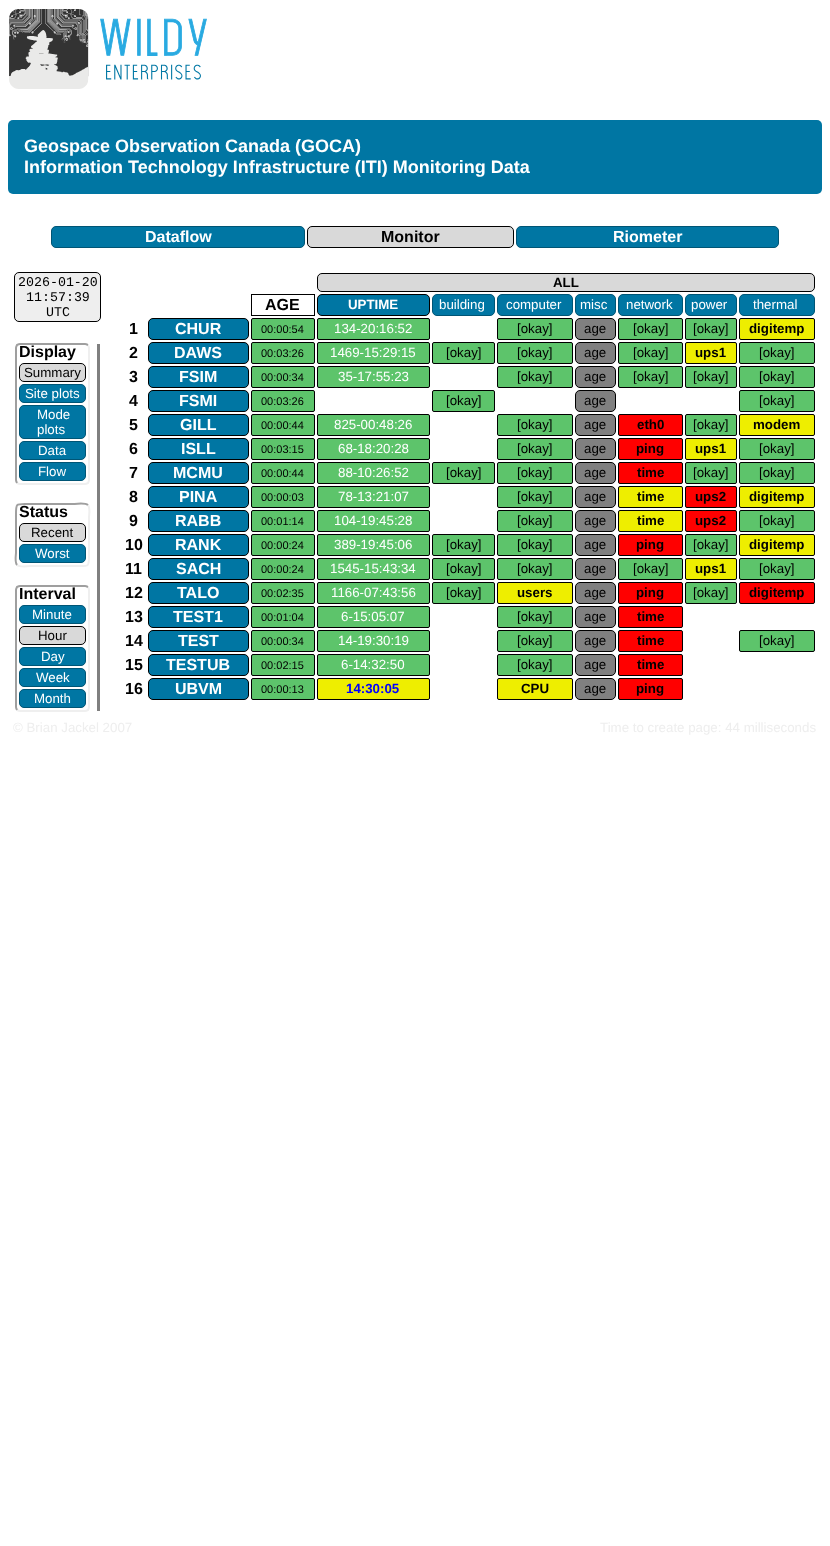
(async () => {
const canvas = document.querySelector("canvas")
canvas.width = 830
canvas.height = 1546
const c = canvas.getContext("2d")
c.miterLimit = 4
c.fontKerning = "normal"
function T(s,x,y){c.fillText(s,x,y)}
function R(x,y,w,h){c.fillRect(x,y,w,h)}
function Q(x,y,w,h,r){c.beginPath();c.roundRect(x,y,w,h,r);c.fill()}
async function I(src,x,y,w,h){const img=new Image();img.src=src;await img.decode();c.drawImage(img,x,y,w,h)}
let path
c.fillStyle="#fff"
R(0,0,830,1546)
await I("1.png",9,9,198,80)
c.fillStyle="#0076a3"
Q(8,120,814,74,5)
c.font="bold 18px Liberation Sans"
c.fillStyle="#fff"
T("Geospace Observation Canada (GOCA)",24,152)
T("Information Technology Infrastructure (ITI) Monitoring Data",24,173)
c.fillStyle="#0076a3"
c.beginPath()
c.roundRect(51.5,226.5,253,21,4.5)
c.fill()
c.strokeStyle="#005575"
c.stroke()
c.font="bold 16px Liberation Sans"
c.fillStyle="#fff"
T("Dataflow",145,242)
c.fillStyle="#d9d9d9"
c.beginPath()
c.roundRect(307.5,226.5,206,21,4.5)
c.fill()
c.strokeStyle="#000"
c.stroke()
c.fillStyle="#000"
T("Monitor",381,242)
c.fillStyle="#0076a3"
c.beginPath()
c.roundRect(516.5,226.5,262,21,4.5)
c.fill()
c.strokeStyle="#005575"
c.stroke()
c.fillStyle="#fff"
T("Riometer",613,242)
c.fillStyle="#eee"
c.beginPath()
c.roundRect(14.5,272.5,86,49,4.5)
c.fill()
c.strokeStyle="#000"
c.stroke()
c.font="13.3px Liberation Mono"
c.fillStyle="#000"
T("2026-01-20",18,286)
T("11:57:39",26,301)
T("UTC",46,316)
path = new Path2D("M88 345c.5 1 1 2 1 3v132c0 1-.5 2-1 3c-1 .5-2 1-3 1h-65c-1 0-2-.5-3-1")
c.strokeStyle="#efefef"
c.lineWidth=2
c.stroke(path)
path = new Path2D("M17 483c-.5-1-1-2-1-3v-132c0-1 .5-2 1-3c1-.5 2-1 3-1h65c1 0 2 .5 3 1")
c.strokeStyle="#9f9f9f"
c.stroke(path)
c.font="bold 16px Liberation Sans"
T("Display",19,357)
c.fillStyle="#d9d9d9"
c.beginPath()
c.roundRect(19.5,363.5,66,18,4.5)
c.fill()
c.strokeStyle="#000"
c.lineWidth=1
c.stroke()
c.font="13.3px Liberation Sans"
c.fillStyle="#000"
T("Summary",24,377)
c.fillStyle="#0076a3"
c.beginPath()
c.roundRect(19.5,384.5,66,18,4.5)
c.fill()
c.strokeStyle="#005575"
c.stroke()
c.fillStyle="#fff"
T("Site plots",25,398)
c.fillStyle="#0076a3"
c.beginPath()
c.roundRect(19.5,405.5,66,33,4.5)
c.fill()
c.stroke()
c.fillStyle="#fff"
T("Mode",37,419)
T("plots",37,434)
c.fillStyle="#0076a3"
c.beginPath()
c.roundRect(19.5,441.5,66,18,4.5)
c.fill()
c.stroke()
c.fillStyle="#fff"
T("Data",38,455)
c.fillStyle="#0076a3"
c.beginPath()
c.roundRect(19.5,462.5,66,18,4.5)
c.fill()
c.stroke()
c.fillStyle="#fff"
T("Flow",38,476)
path = new Path2D("M88 505c2.5 3 1 10.5 1 12v36c0 15 1 13-15 13h-43c-.5 0-11 1.5-14-1")
c.strokeStyle="#efefef"
c.lineWidth=2
c.stroke(path)
path = new Path2D("M17 565c-2.5-3-1-10.5-1-12v-36c0-15-1-13 15-13h43c.5 0 11-1.5 14 1")
c.strokeStyle="#9f9f9f"
c.stroke(path)
c.font="bold 16px Liberation Sans"
c.fillStyle="#000"
T("Status",19,517)
c.fillStyle="#d9d9d9"
c.beginPath()
c.roundRect(19.5,523.5,66,18,4.5)
c.fill()
c.strokeStyle="#000"
c.lineWidth=1
c.stroke()
c.font="13.3px Liberation Sans"
c.fillStyle="#000"
T("Recent",31,537)
c.fillStyle="#0076a3"
c.beginPath()
c.roundRect(19.5,544.5,66,18,4.5)
c.fill()
c.strokeStyle="#005575"
c.stroke()
c.fillStyle="#fff"
T("Worst",35,558)
path = new Path2D("M88 587c.5 1 1 2 1 3v117c0 1-.5 2-1 3c-1 .5-2 1-3 1h-65c-1 0-2-.5-3-1")
c.strokeStyle="#efefef"
c.lineWidth=2
c.stroke(path)
path = new Path2D("M17 710c-.5-1-1-2-1-3v-117c0-1 .5-2 1-3c1-.5 2-1 3-1h65c1 0 2 .5 3 1")
c.strokeStyle="#9f9f9f"
c.stroke(path)
c.font="bold 16px Liberation Sans"
c.fillStyle="#000"
T("Interval",19,599)
c.fillStyle="#0076a3"
c.beginPath()
c.roundRect(19.5,605.5,66,18,4.5)
c.fill()
c.strokeStyle="#005575"
c.lineWidth=1
c.stroke()
c.font="13.3px Liberation Sans"
c.fillStyle="#fff"
T("Minute",32,619)
c.fillStyle="#d9d9d9"
c.beginPath()
c.roundRect(19.5,626.5,66,18,4.5)
c.fill()
c.strokeStyle="#000"
c.stroke()
c.fillStyle="#000"
T("Hour",38,640)
c.fillStyle="#0076a3"
c.beginPath()
c.roundRect(19.5,647.5,66,18,4.5)
c.fill()
c.strokeStyle="#005575"
c.stroke()
c.fillStyle="#fff"
T("Day",41,661)
c.fillStyle="#0076a3"
c.beginPath()
c.roundRect(19.5,668.5,66,18,4.5)
c.fill()
c.stroke()
c.fillStyle="#fff"
T("Week",36,682)
c.fillStyle="#0076a3"
c.beginPath()
c.roundRect(19.5,689.5,66,18,4.5)
c.fill()
c.stroke()
c.fillStyle="#fff"
T("Month",34,703)
c.fillStyle="#808080"
R(97,344,3,367)
c.fillStyle="#d9d9d9"
c.beginPath()
c.roundRect(317.5,273.5,497,18,4.5)
c.fill()
c.strokeStyle="#000"
c.stroke()
c.font="bold 13.3px Liberation Sans"
c.fillStyle="#000"
T("ALL",553,287)
c.strokeRect(251.5,294.5,63,21)
c.font="bold 16px Liberation Sans"
T("AGE",265,310)
c.fillStyle="#0076a3"
c.beginPath()
c.roundRect(317.5,294.5,112,21,4.5)
c.fill()
c.stroke()
c.font="bold 13.3px Liberation Sans"
c.fillStyle="#fff"
T("UPTIME",348,309)
c.fillStyle="#0076a3"
c.beginPath()
c.roundRect(432.5,294.5,62,21,4.5)
c.fill()
c.strokeStyle="#005575"
c.stroke()
c.font="13.3px Liberation Sans"
c.fillStyle="#fff"
T("building",439,309)
c.fillStyle="#0076a3"
c.beginPath()
c.roundRect(497.5,294.5,75,21,4.5)
c.fill()
c.stroke()
c.fillStyle="#fff"
T("computer",506,309)
c.fillStyle="#0076a3"
c.beginPath()
c.roundRect(575.5,294.5,40,21,4.5)
c.fill()
c.stroke()
c.fillStyle="#fff"
T("misc",580,309)
c.fillStyle="#0076a3"
c.beginPath()
c.roundRect(618.5,294.5,64,21,4.5)
c.fill()
c.stroke()
c.fillStyle="#fff"
T("network",626,309)
c.fillStyle="#0076a3"
c.beginPath()
c.roundRect(685.5,294.5,51,21,4.5)
c.fill()
c.stroke()
c.fillStyle="#fff"
T("power",691,309)
c.fillStyle="#0076a3"
c.beginPath()
c.roundRect(739.5,294.5,75,21,4.5)
c.fill()
c.stroke()
c.fillStyle="#fff"
T("thermal",753,309)
c.font="bold 16px Liberation Sans"
c.fillStyle="#000"
T("1",129,334)
c.fillStyle="#0076a3"
c.beginPath()
c.roundRect(148.5,318.5,100,21,4.5)
c.fill()
c.strokeStyle="#000"
c.stroke()
c.fillStyle="#fff"
T("CHUR",175,334)
c.fillStyle="#5dc46b"
c.beginPath()
c.roundRect(251.5,318.5,63,21,1.5)
c.fill()
c.stroke()
c.font="11px Liberation Sans"
c.fillStyle="#000"
T("00:00:54",261,333)
c.fillStyle="#5dc46b"
c.beginPath()
c.roundRect(317.5,318.5,112,21,1.5)
c.fill()
c.stroke()
c.font="13.3px Liberation Sans"
c.fillStyle="#fff"
T("134-20:16:52",334,333)
c.fillStyle="#5dc46b"
c.beginPath()
c.roundRect(497.5,318.5,75,21,1.5)
c.fill()
c.stroke()
c.fillStyle="#000"
T("[okay]",517,333)
c.fillStyle="#808080"
c.beginPath()
c.roundRect(575.5,318.5,40,21,4.5)
c.fill()
c.stroke()
c.fillStyle="#000"
T("age",584,333)
c.fillStyle="#5dc46b"
c.beginPath()
c.roundRect(618.5,318.5,64,21,1.5)
c.fill()
c.stroke()
c.fillStyle="#000"
T("[okay]",633,333)
c.fillStyle="#5dc46b"
c.beginPath()
c.roundRect(685.5,318.5,51,21,1.5)
c.fill()
c.stroke()
c.fillStyle="#000"
T("[okay]",693,333)
c.fillStyle="#ee0"
c.beginPath()
c.roundRect(739.5,318.5,75,21,1.5)
c.fill()
c.stroke()
c.font="bold 13.3px Liberation Sans"
c.fillStyle="#000"
T("digitemp",749,333)
c.font="bold 16px Liberation Sans"
T("2",129,358)
c.fillStyle="#0076a3"
c.beginPath()
c.roundRect(148.5,342.5,100,21,4.5)
c.fill()
c.stroke()
c.fillStyle="#fff"
T("DAWS",174,358)
c.fillStyle="#5dc46b"
c.beginPath()
c.roundRect(251.5,342.5,63,21,1.5)
c.fill()
c.stroke()
c.font="11px Liberation Sans"
c.fillStyle="#000"
T("00:03:26",261,357)
c.fillStyle="#5dc46b"
c.beginPath()
c.roundRect(317.5,342.5,112,21,1.5)
c.fill()
c.stroke()
c.font="13.3px Liberation Sans"
c.fillStyle="#fff"
T("1469-15:29:15",330,357)
c.fillStyle="#5dc46b"
c.beginPath()
c.roundRect(432.5,342.5,62,21,1.5)
c.fill()
c.stroke()
c.fillStyle="#000"
T("[okay]",446,357)
c.fillStyle="#5dc46b"
c.beginPath()
c.roundRect(497.5,342.5,75,21,1.5)
c.fill()
c.stroke()
c.fillStyle="#000"
T("[okay]",517,357)
c.fillStyle="#808080"
c.beginPath()
c.roundRect(575.5,342.5,40,21,4.5)
c.fill()
c.stroke()
c.fillStyle="#000"
T("age",584,357)
c.fillStyle="#5dc46b"
c.beginPath()
c.roundRect(618.5,342.5,64,21,1.5)
c.fill()
c.stroke()
c.fillStyle="#000"
T("[okay]",633,357)
c.fillStyle="#ee0"
c.beginPath()
c.roundRect(685.5,342.5,51,21,1.5)
c.fill()
c.stroke()
c.font="bold 13.3px Liberation Sans"
c.fillStyle="#000"
T("ups1",695,357)
c.fillStyle="#5dc46b"
c.beginPath()
c.roundRect(739.5,342.5,75,21,1.5)
c.fill()
c.stroke()
c.font="13.3px Liberation Sans"
c.fillStyle="#000"
T("[okay]",759,357)
c.font="bold 16px Liberation Sans"
T("3",129,382)
c.fillStyle="#0076a3"
c.beginPath()
c.roundRect(148.5,366.5,100,21,4.5)
c.fill()
c.stroke()
c.fillStyle="#fff"
T("FSIM",179,382)
c.fillStyle="#5dc46b"
c.beginPath()
c.roundRect(251.5,366.5,63,21,1.5)
c.fill()
c.stroke()
c.font="11px Liberation Sans"
c.fillStyle="#000"
T("00:00:34",261,381)
c.fillStyle="#5dc46b"
c.beginPath()
c.roundRect(317.5,366.5,112,21,1.5)
c.fill()
c.stroke()
c.font="13.3px Liberation Sans"
c.fillStyle="#fff"
T("35-17:55:23",338,381)
c.fillStyle="#5dc46b"
c.beginPath()
c.roundRect(497.5,366.5,75,21,1.5)
c.fill()
c.stroke()
c.fillStyle="#000"
T("[okay]",517,381)
c.fillStyle="#808080"
c.beginPath()
c.roundRect(575.5,366.5,40,21,4.5)
c.fill()
c.stroke()
c.fillStyle="#000"
T("age",584,381)
c.fillStyle="#5dc46b"
c.beginPath()
c.roundRect(618.5,366.5,64,21,1.5)
c.fill()
c.stroke()
c.fillStyle="#000"
T("[okay]",633,381)
c.fillStyle="#5dc46b"
c.beginPath()
c.roundRect(685.5,366.5,51,21,1.5)
c.fill()
c.stroke()
c.fillStyle="#000"
T("[okay]",693,381)
c.fillStyle="#5dc46b"
c.beginPath()
c.roundRect(739.5,366.5,75,21,1.5)
c.fill()
c.stroke()
c.fillStyle="#000"
T("[okay]",759,381)
c.font="bold 16px Liberation Sans"
T("4",129,406)
c.fillStyle="#0076a3"
c.beginPath()
c.roundRect(148.5,390.5,100,21,4.5)
c.fill()
c.stroke()
c.fillStyle="#fff"
T("FSMI",179,406)
c.fillStyle="#5dc46b"
c.beginPath()
c.roundRect(251.5,390.5,63,21,1.5)
c.fill()
c.stroke()
c.font="11px Liberation Sans"
c.fillStyle="#000"
T("00:03:26",261,405)
c.fillStyle="#5dc46b"
c.beginPath()
c.roundRect(432.5,390.5,62,21,1.5)
c.fill()
c.stroke()
c.font="13.3px Liberation Sans"
c.fillStyle="#000"
T("[okay]",446,405)
c.fillStyle="#808080"
c.beginPath()
c.roundRect(575.5,390.5,40,21,4.5)
c.fill()
c.stroke()
c.fillStyle="#000"
T("age",584,405)
c.fillStyle="#5dc46b"
c.beginPath()
c.roundRect(739.5,390.5,75,21,1.5)
c.fill()
c.stroke()
c.fillStyle="#000"
T("[okay]",759,405)
c.font="bold 16px Liberation Sans"
T("5",129,430)
c.fillStyle="#0076a3"
c.beginPath()
c.roundRect(148.5,414.5,100,21,4.5)
c.fill()
c.stroke()
c.fillStyle="#fff"
T("GILL",180,430)
c.fillStyle="#5dc46b"
c.beginPath()
c.roundRect(251.5,414.5,63,21,1.5)
c.fill()
c.stroke()
c.font="11px Liberation Sans"
c.fillStyle="#000"
T("00:00:44",261,429)
c.fillStyle="#5dc46b"
c.beginPath()
c.roundRect(317.5,414.5,112,21,1.5)
c.fill()
c.stroke()
c.font="13.3px Liberation Sans"
c.fillStyle="#fff"
T("825-00:48:26",334,429)
c.fillStyle="#5dc46b"
c.beginPath()
c.roundRect(497.5,414.5,75,21,1.5)
c.fill()
c.stroke()
c.fillStyle="#000"
T("[okay]",517,429)
c.fillStyle="#808080"
c.beginPath()
c.roundRect(575.5,414.5,40,21,4.5)
c.fill()
c.stroke()
c.fillStyle="#000"
T("age",584,429)
c.fillStyle="#f00"
c.beginPath()
c.roundRect(618.5,414.5,64,21,1.5)
c.fill()
c.stroke()
c.font="bold 13.3px Liberation Sans"
c.fillStyle="#000"
T("eth0",637,429)
c.fillStyle="#5dc46b"
c.beginPath()
c.roundRect(685.5,414.5,51,21,1.5)
c.fill()
c.stroke()
c.font="13.3px Liberation Sans"
c.fillStyle="#000"
T("[okay]",693,429)
c.fillStyle="#ee0"
c.beginPath()
c.roundRect(739.5,414.5,75,21,1.5)
c.fill()
c.stroke()
c.font="bold 13.3px Liberation Sans"
c.fillStyle="#000"
T("modem",753,429)
c.font="bold 16px Liberation Sans"
T("6",129,454)
c.fillStyle="#0076a3"
c.beginPath()
c.roundRect(148.5,438.5,100,21,4.5)
c.fill()
c.stroke()
c.fillStyle="#fff"
T("ISLL",181,454)
c.fillStyle="#5dc46b"
c.beginPath()
c.roundRect(251.5,438.5,63,21,1.5)
c.fill()
c.stroke()
c.font="11px Liberation Sans"
c.fillStyle="#000"
T("00:03:15",261,453)
c.fillStyle="#5dc46b"
c.beginPath()
c.roundRect(317.5,438.5,112,21,1.5)
c.fill()
c.stroke()
c.font="13.3px Liberation Sans"
c.fillStyle="#fff"
T("68-18:20:28",338,453)
c.fillStyle="#5dc46b"
c.beginPath()
c.roundRect(497.5,438.5,75,21,1.5)
c.fill()
c.stroke()
c.fillStyle="#000"
T("[okay]",517,453)
c.fillStyle="#808080"
c.beginPath()
c.roundRect(575.5,438.5,40,21,4.5)
c.fill()
c.stroke()
c.fillStyle="#000"
T("age",584,453)
c.fillStyle="#f00"
c.beginPath()
c.roundRect(618.5,438.5,64,21,1.5)
c.fill()
c.stroke()
c.font="bold 13.3px Liberation Sans"
c.fillStyle="#000"
T("ping",636,453)
c.fillStyle="#ee0"
c.beginPath()
c.roundRect(685.5,438.5,51,21,1.5)
c.fill()
c.stroke()
c.fillStyle="#000"
T("ups1",695,453)
c.fillStyle="#5dc46b"
c.beginPath()
c.roundRect(739.5,438.5,75,21,1.5)
c.fill()
c.stroke()
c.font="13.3px Liberation Sans"
c.fillStyle="#000"
T("[okay]",759,453)
c.font="bold 16px Liberation Sans"
T("7",129,478)
c.fillStyle="#0076a3"
c.beginPath()
c.roundRect(148.5,462.5,100,21,4.5)
c.fill()
c.stroke()
c.fillStyle="#fff"
T("MCMU",173,478)
c.fillStyle="#5dc46b"
c.beginPath()
c.roundRect(251.5,462.5,63,21,1.5)
c.fill()
c.stroke()
c.font="11px Liberation Sans"
c.fillStyle="#000"
T("00:00:44",261,477)
c.fillStyle="#5dc46b"
c.beginPath()
c.roundRect(317.5,462.5,112,21,1.5)
c.fill()
c.stroke()
c.font="13.3px Liberation Sans"
c.fillStyle="#fff"
T("88-10:26:52",338,477)
c.fillStyle="#5dc46b"
c.beginPath()
c.roundRect(432.5,462.5,62,21,1.5)
c.fill()
c.stroke()
c.fillStyle="#000"
T("[okay]",446,477)
c.fillStyle="#5dc46b"
c.beginPath()
c.roundRect(497.5,462.5,75,21,1.5)
c.fill()
c.stroke()
c.fillStyle="#000"
T("[okay]",517,477)
c.fillStyle="#808080"
c.beginPath()
c.roundRect(575.5,462.5,40,21,4.5)
c.fill()
c.stroke()
c.fillStyle="#000"
T("age",584,477)
c.fillStyle="#f00"
c.beginPath()
c.roundRect(618.5,462.5,64,21,1.5)
c.fill()
c.stroke()
c.font="bold 13.3px Liberation Sans"
c.fillStyle="#000"
T("time",637,477)
c.fillStyle="#5dc46b"
c.beginPath()
c.roundRect(685.5,462.5,51,21,1.5)
c.fill()
c.stroke()
c.font="13.3px Liberation Sans"
c.fillStyle="#000"
T("[okay]",693,477)
c.fillStyle="#5dc46b"
c.beginPath()
c.roundRect(739.5,462.5,75,21,1.5)
c.fill()
c.stroke()
c.fillStyle="#000"
T("[okay]",759,477)
c.font="bold 16px Liberation Sans"
T("8",129,502)
c.fillStyle="#0076a3"
c.beginPath()
c.roundRect(148.5,486.5,100,21,4.5)
c.fill()
c.stroke()
c.fillStyle="#fff"
T("PINA",179,502)
c.fillStyle="#5dc46b"
c.beginPath()
c.roundRect(251.5,486.5,63,21,1.5)
c.fill()
c.stroke()
c.font="11px Liberation Sans"
c.fillStyle="#000"
T("00:00:03",261,501)
c.fillStyle="#5dc46b"
c.beginPath()
c.roundRect(317.5,486.5,112,21,1.5)
c.fill()
c.stroke()
c.font="13.3px Liberation Sans"
c.fillStyle="#fff"
T("78-13:21:07",338,501)
c.fillStyle="#5dc46b"
c.beginPath()
c.roundRect(497.5,486.5,75,21,1.5)
c.fill()
c.stroke()
c.fillStyle="#000"
T("[okay]",517,501)
c.fillStyle="#808080"
c.beginPath()
c.roundRect(575.5,486.5,40,21,4.5)
c.fill()
c.stroke()
c.fillStyle="#000"
T("age",584,501)
c.fillStyle="#ee0"
c.beginPath()
c.roundRect(618.5,486.5,64,21,1.5)
c.fill()
c.stroke()
c.font="bold 13.3px Liberation Sans"
c.fillStyle="#000"
T("time",637,501)
c.fillStyle="#f00"
c.beginPath()
c.roundRect(685.5,486.5,51,21,1.5)
c.fill()
c.stroke()
c.fillStyle="#000"
T("ups2",695,501)
c.fillStyle="#ee0"
c.beginPath()
c.roundRect(739.5,486.5,75,21,1.5)
c.fill()
c.stroke()
c.fillStyle="#000"
T("digitemp",749,501)
c.font="bold 16px Liberation Sans"
T("9",129,526)
c.fillStyle="#0076a3"
c.beginPath()
c.roundRect(148.5,510.5,100,21,4.5)
c.fill()
c.stroke()
c.fillStyle="#fff"
T("RABB",175,526)
c.fillStyle="#5dc46b"
c.beginPath()
c.roundRect(251.5,510.5,63,21,1.5)
c.fill()
c.stroke()
c.font="11px Liberation Sans"
c.fillStyle="#000"
T("00:01:14",261,525)
c.fillStyle="#5dc46b"
c.beginPath()
c.roundRect(317.5,510.5,112,21,1.5)
c.fill()
c.stroke()
c.font="13.3px Liberation Sans"
c.fillStyle="#fff"
T("104-19:45:28",334,525)
c.fillStyle="#5dc46b"
c.beginPath()
c.roundRect(497.5,510.5,75,21,1.5)
c.fill()
c.stroke()
c.fillStyle="#000"
T("[okay]",517,525)
c.fillStyle="#808080"
c.beginPath()
c.roundRect(575.5,510.5,40,21,4.5)
c.fill()
c.stroke()
c.fillStyle="#000"
T("age",584,525)
c.fillStyle="#ee0"
c.beginPath()
c.roundRect(618.5,510.5,64,21,1.5)
c.fill()
c.stroke()
c.font="bold 13.3px Liberation Sans"
c.fillStyle="#000"
T("time",637,525)
c.fillStyle="#f00"
c.beginPath()
c.roundRect(685.5,510.5,51,21,1.5)
c.fill()
c.stroke()
c.fillStyle="#000"
T("ups2",695,525)
c.fillStyle="#5dc46b"
c.beginPath()
c.roundRect(739.5,510.5,75,21,1.5)
c.fill()
c.stroke()
c.font="13.3px Liberation Sans"
c.fillStyle="#000"
T("[okay]",759,525)
c.font="bold 16px Liberation Sans"
T("10",125,550)
c.fillStyle="#0076a3"
c.beginPath()
c.roundRect(148.5,534.5,100,21,4.5)
c.fill()
c.stroke()
c.fillStyle="#fff"
T("RANK",175,550)
c.fillStyle="#5dc46b"
c.beginPath()
c.roundRect(251.5,534.5,63,21,1.5)
c.fill()
c.stroke()
c.font="11px Liberation Sans"
c.fillStyle="#000"
T("00:00:24",261,549)
c.fillStyle="#5dc46b"
c.beginPath()
c.roundRect(317.5,534.5,112,21,1.5)
c.fill()
c.stroke()
c.font="13.3px Liberation Sans"
c.fillStyle="#fff"
T("389-19:45:06",334,549)
c.fillStyle="#5dc46b"
c.beginPath()
c.roundRect(432.5,534.5,62,21,1.5)
c.fill()
c.stroke()
c.fillStyle="#000"
T("[okay]",446,549)
c.fillStyle="#5dc46b"
c.beginPath()
c.roundRect(497.5,534.5,75,21,1.5)
c.fill()
c.stroke()
c.fillStyle="#000"
T("[okay]",517,549)
c.fillStyle="#808080"
c.beginPath()
c.roundRect(575.5,534.5,40,21,4.5)
c.fill()
c.stroke()
c.fillStyle="#000"
T("age",584,549)
c.fillStyle="#f00"
c.beginPath()
c.roundRect(618.5,534.5,64,21,1.5)
c.fill()
c.stroke()
c.font="bold 13.3px Liberation Sans"
c.fillStyle="#000"
T("ping",636,549)
c.fillStyle="#5dc46b"
c.beginPath()
c.roundRect(685.5,534.5,51,21,1.5)
c.fill()
c.stroke()
c.font="13.3px Liberation Sans"
c.fillStyle="#000"
T("[okay]",693,549)
c.fillStyle="#ee0"
c.beginPath()
c.roundRect(739.5,534.5,75,21,1.5)
c.fill()
c.stroke()
c.font="bold 13.3px Liberation Sans"
c.fillStyle="#000"
T("digitemp",749,549)
c.font="bold 16px Liberation Sans"
T("11",125,574)
c.fillStyle="#0076a3"
c.beginPath()
c.roundRect(148.5,558.5,100,21,4.5)
c.fill()
c.stroke()
c.fillStyle="#fff"
T("SACH",176,574)
c.fillStyle="#5dc46b"
c.beginPath()
c.roundRect(251.5,558.5,63,21,1.5)
c.fill()
c.stroke()
c.font="11px Liberation Sans"
c.fillStyle="#000"
T("00:00:24",261,573)
c.fillStyle="#5dc46b"
c.beginPath()
c.roundRect(317.5,558.5,112,21,1.5)
c.fill()
c.stroke()
c.font="13.3px Liberation Sans"
c.fillStyle="#fff"
T("1545-15:43:34",330,573)
c.fillStyle="#5dc46b"
c.beginPath()
c.roundRect(432.5,558.5,62,21,1.5)
c.fill()
c.stroke()
c.fillStyle="#000"
T("[okay]",446,573)
c.fillStyle="#5dc46b"
c.beginPath()
c.roundRect(497.5,558.5,75,21,1.5)
c.fill()
c.stroke()
c.fillStyle="#000"
T("[okay]",517,573)
c.fillStyle="#808080"
c.beginPath()
c.roundRect(575.5,558.5,40,21,4.5)
c.fill()
c.stroke()
c.fillStyle="#000"
T("age",584,573)
c.fillStyle="#5dc46b"
c.beginPath()
c.roundRect(618.5,558.5,64,21,1.5)
c.fill()
c.stroke()
c.fillStyle="#000"
T("[okay]",633,573)
c.fillStyle="#ee0"
c.beginPath()
c.roundRect(685.5,558.5,51,21,1.5)
c.fill()
c.stroke()
c.font="bold 13.3px Liberation Sans"
c.fillStyle="#000"
T("ups1",695,573)
c.fillStyle="#5dc46b"
c.beginPath()
c.roundRect(739.5,558.5,75,21,1.5)
c.fill()
c.stroke()
c.font="13.3px Liberation Sans"
c.fillStyle="#000"
T("[okay]",759,573)
c.font="bold 16px Liberation Sans"
T("12",125,598)
c.fillStyle="#0076a3"
c.beginPath()
c.roundRect(148.5,582.5,100,21,4.5)
c.fill()
c.stroke()
c.fillStyle="#fff"
T("TALO",177,598)
c.fillStyle="#5dc46b"
c.beginPath()
c.roundRect(251.5,582.5,63,21,1.5)
c.fill()
c.stroke()
c.font="11px Liberation Sans"
c.fillStyle="#000"
T("00:02:35",261,597)
c.fillStyle="#5dc46b"
c.beginPath()
c.roundRect(317.5,582.5,112,21,1.5)
c.fill()
c.stroke()
c.font="13.3px Liberation Sans"
c.fillStyle="#fff"
T("1166-07:43:56",331,597)
c.fillStyle="#5dc46b"
c.beginPath()
c.roundRect(432.5,582.5,62,21,1.5)
c.fill()
c.stroke()
c.fillStyle="#000"
T("[okay]",446,597)
c.fillStyle="#ee0"
c.beginPath()
c.roundRect(497.5,582.5,75,21,1.5)
c.fill()
c.stroke()
c.font="bold 13.3px Liberation Sans"
c.fillStyle="#000"
T("users",517,597)
c.fillStyle="#808080"
c.beginPath()
c.roundRect(575.5,582.5,40,21,4.5)
c.fill()
c.stroke()
c.font="13.3px Liberation Sans"
c.fillStyle="#000"
T("age",584,597)
c.fillStyle="#f00"
c.beginPath()
c.roundRect(618.5,582.5,64,21,1.5)
c.fill()
c.stroke()
c.font="bold 13.3px Liberation Sans"
c.fillStyle="#000"
T("ping",636,597)
c.fillStyle="#5dc46b"
c.beginPath()
c.roundRect(685.5,582.5,51,21,1.5)
c.fill()
c.stroke()
c.font="13.3px Liberation Sans"
c.fillStyle="#000"
T("[okay]",693,597)
c.fillStyle="#f00"
c.beginPath()
c.roundRect(739.5,582.5,75,21,1.5)
c.fill()
c.stroke()
c.font="bold 13.3px Liberation Sans"
c.fillStyle="#000"
T("digitemp",749,597)
c.font="bold 16px Liberation Sans"
T("13",125,622)
c.fillStyle="#0076a3"
c.beginPath()
c.roundRect(148.5,606.5,100,21,4.5)
c.fill()
c.stroke()
c.fillStyle="#fff"
T("TEST1",173,622)
c.fillStyle="#5dc46b"
c.beginPath()
c.roundRect(251.5,606.5,63,21,1.5)
c.fill()
c.stroke()
c.font="11px Liberation Sans"
c.fillStyle="#000"
T("00:01:04",261,621)
c.fillStyle="#5dc46b"
c.beginPath()
c.roundRect(317.5,606.5,112,21,1.5)
c.fill()
c.stroke()
c.font="13.3px Liberation Sans"
c.fillStyle="#fff"
T("6-15:05:07",341,621)
c.fillStyle="#5dc46b"
c.beginPath()
c.roundRect(497.5,606.5,75,21,1.5)
c.fill()
c.stroke()
c.fillStyle="#000"
T("[okay]",517,621)
c.fillStyle="#808080"
c.beginPath()
c.roundRect(575.5,606.5,40,21,4.5)
c.fill()
c.stroke()
c.fillStyle="#000"
T("age",584,621)
c.fillStyle="#f00"
c.beginPath()
c.roundRect(618.5,606.5,64,21,1.5)
c.fill()
c.stroke()
c.font="bold 13.3px Liberation Sans"
c.fillStyle="#000"
T("time",637,621)
c.font="bold 16px Liberation Sans"
T("14",125,646)
c.fillStyle="#0076a3"
c.beginPath()
c.roundRect(148.5,630.5,100,21,4.5)
c.fill()
c.stroke()
c.fillStyle="#fff"
T("TEST",178,646)
c.fillStyle="#5dc46b"
c.beginPath()
c.roundRect(251.5,630.5,63,21,1.5)
c.fill()
c.stroke()
c.font="11px Liberation Sans"
c.fillStyle="#000"
T("00:00:34",261,645)
c.fillStyle="#5dc46b"
c.beginPath()
c.roundRect(317.5,630.5,112,21,1.5)
c.fill()
c.stroke()
c.font="13.3px Liberation Sans"
c.fillStyle="#fff"
T("14-19:30:19",338,645)
c.fillStyle="#5dc46b"
c.beginPath()
c.roundRect(497.5,630.5,75,21,1.5)
c.fill()
c.stroke()
c.fillStyle="#000"
T("[okay]",517,645)
c.fillStyle="#808080"
c.beginPath()
c.roundRect(575.5,630.5,40,21,4.5)
c.fill()
c.stroke()
c.fillStyle="#000"
T("age",584,645)
c.fillStyle="#f00"
c.beginPath()
c.roundRect(618.5,630.5,64,21,1.5)
c.fill()
c.stroke()
c.font="bold 13.3px Liberation Sans"
c.fillStyle="#000"
T("time",637,645)
c.fillStyle="#5dc46b"
c.beginPath()
c.roundRect(739.5,630.5,75,21,1.5)
c.fill()
c.stroke()
c.font="13.3px Liberation Sans"
c.fillStyle="#000"
T("[okay]",759,645)
c.font="bold 16px Liberation Sans"
T("15",125,670)
c.fillStyle="#0076a3"
c.beginPath()
c.roundRect(148.5,654.5,100,21,4.5)
c.fill()
c.stroke()
c.fillStyle="#fff"
T("TESTUB",166,670)
c.fillStyle="#5dc46b"
c.beginPath()
c.roundRect(251.5,654.5,63,21,1.5)
c.fill()
c.stroke()
c.font="11px Liberation Sans"
c.fillStyle="#000"
T("00:02:15",261,669)
c.fillStyle="#5dc46b"
c.beginPath()
c.roundRect(317.5,654.5,112,21,1.5)
c.fill()
c.stroke()
c.font="13.3px Liberation Sans"
c.fillStyle="#fff"
T("6-14:32:50",341,669)
c.fillStyle="#5dc46b"
c.beginPath()
c.roundRect(497.5,654.5,75,21,1.5)
c.fill()
c.stroke()
c.fillStyle="#000"
T("[okay]",517,669)
c.fillStyle="#808080"
c.beginPath()
c.roundRect(575.5,654.5,40,21,4.5)
c.fill()
c.stroke()
c.fillStyle="#000"
T("age",584,669)
c.fillStyle="#f00"
c.beginPath()
c.roundRect(618.5,654.5,64,21,1.5)
c.fill()
c.stroke()
c.font="bold 13.3px Liberation Sans"
c.fillStyle="#000"
T("time",637,669)
c.font="bold 16px Liberation Sans"
T("16",125,694)
c.fillStyle="#0076a3"
c.beginPath()
c.roundRect(148.5,678.5,100,21,4.5)
c.fill()
c.stroke()
c.fillStyle="#fff"
T("UBVM",175,694)
c.fillStyle="#5dc46b"
c.beginPath()
c.roundRect(251.5,678.5,63,21,1.5)
c.fill()
c.stroke()
c.font="11px Liberation Sans"
c.fillStyle="#000"
T("00:00:13",261,693)
c.fillStyle="#ee0"
c.beginPath()
c.roundRect(317.5,678.5,112,21,1.5)
c.fill()
c.stroke()
c.font="bold 13.3px Liberation Sans"
c.fillStyle="#00f"
T("14:30:05",346,693)
c.fillStyle="#ee0"
c.beginPath()
c.roundRect(497.5,678.5,75,21,1.5)
c.fill()
c.stroke()
c.fillStyle="#000"
T("CPU",521,693)
c.fillStyle="#808080"
c.beginPath()
c.roundRect(575.5,678.5,40,21,4.5)
c.fill()
c.stroke()
c.font="13.3px Liberation Sans"
c.fillStyle="#000"
T("age",584,693)
c.fillStyle="#f00"
c.beginPath()
c.roundRect(618.5,678.5,64,21,1.5)
c.fill()
c.stroke()
c.font="bold 13.3px Liberation Sans"
c.fillStyle="#000"
T("ping",636,693)
c.font="13.3px Liberation Sans"
c.fillStyle="#eee"
T("© Brian Jackel 2007",13,732)
T("Time to create page: 44 milliseconds",600,732)
})()
